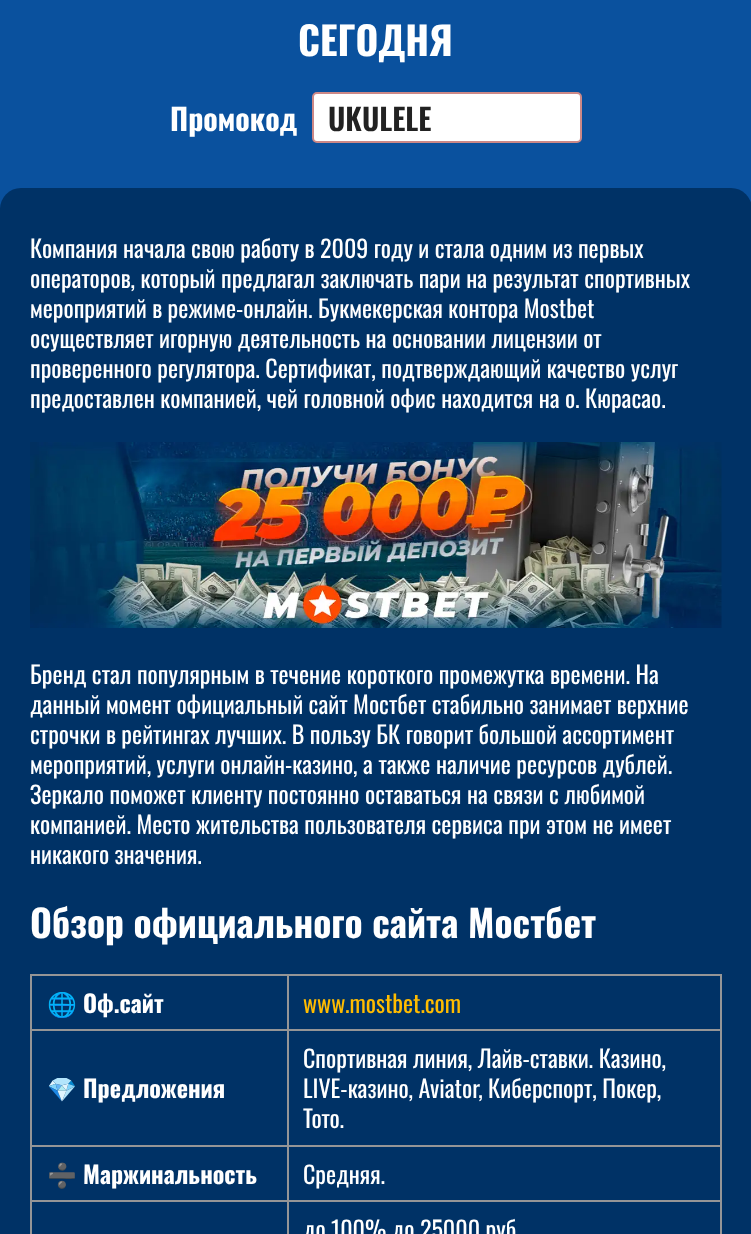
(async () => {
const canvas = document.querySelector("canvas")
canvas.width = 751
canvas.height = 1234
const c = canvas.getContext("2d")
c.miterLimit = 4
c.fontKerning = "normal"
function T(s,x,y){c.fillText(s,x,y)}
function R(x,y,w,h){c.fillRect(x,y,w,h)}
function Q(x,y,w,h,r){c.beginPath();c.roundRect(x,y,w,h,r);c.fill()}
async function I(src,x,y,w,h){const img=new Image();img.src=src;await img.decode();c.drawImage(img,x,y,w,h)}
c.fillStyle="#0a519e"
R(0,0,751,1234)
c.font="bold 39px Oswald"
c.fillStyle="#fff"
T("СЕГОДНЯ",298,56)
c.font="bold 30px Oswald"
T("Промокод",170,131)
c.beginPath()
c.roundRect(313,93,268,49,4)
c.fill()
c.strokeStyle="#cc8887"
c.lineWidth=2
c.stroke()
c.font="600 30px Oswald"
c.fillStyle="#222"
T("UKULELE",328,131)
c.fillStyle="#003266"
Q(0,188,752,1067,21)
c.font="24px Oswald"
c.fillStyle="#fff"
T("Компания начала свою работу в 2009 году и стала одним из первых",30,258)
T("операторов, который предлагал заключать пари на результат спортивных",30,288)
T("мероприятий в режиме-онлайн. Букмекерская контора Mostbet",30,318)
T("осуществляет игорную деятельность на основании лицензии от",30,348)
T("проверенного регулятора. Сертификат, подтверждающий качество услуг",30,378)
T("предоставлен компанией, чей головной офис находится на о. Кюрасао.",30,408)
await I("1.png",30,442,692,186)
T("Бренд стал популярным в течение короткого промежутка времени. На",30,684)
T("данный момент официальный сайт Мостбет стабильно занимает верхние",30,714)
T("строчки в рейтингах лучших. В пользу БК говорит большой ассортимент",30,744)
T("мероприятий, услуги онлайн-казино, а также наличие ресурсов дублей.",30,774)
T("Зеркало поможет клиенту постоянно оставаться на связи с любимой",30,804)
T("компанией. Место жительства пользователя сервиса при этом не имеет",30,834)
T("никакого значения.",30,864)
c.font="bold 37.5px Oswald"
T("Обзор официального сайта Мостбет",30,938)
c.fillStyle="#959596"
R(30,974,692,2)
R(30,974,2,260)
R(287,1200,2,34)
R(720,974,2,260)
R(287,1200,435,2)
R(287,1145,2,57)
R(287,1145,435,2)
R(287,1029,2,117)
R(287,1029,435,2)
R(287,974,2,57)
R(30,1029,258,2)
c.font="bold 24px Noto Color Emoji"
c.fillStyle="#fff"
T("🌐",47,1013)
c.font="bold 24px Oswald"
T("Оф.сайт",83,1013)
c.font="24px Oswald"
c.fillStyle="#ffbc00"
T("www.mostbet.com",303,1013)
c.fillStyle="#959596"
R(30,1145,258,2)
c.font="bold 24px Noto Color Emoji"
c.fillStyle="#fff"
T("💎",47,1098)
c.font="bold 24px Oswald"
T("Предложения",83,1098)
c.font="24px Oswald"
T("Спортивная линия, Лайв-ставки. Казино,",303,1068)
T("LIVE-казино, Aviator, Киберспорт, Покер,",303,1098)
T("Тото.",303,1128)
c.fillStyle="#959596"
R(30,1200,258,2)
c.font="bold 24px Noto Color Emoji"
c.fillStyle="#fff"
T("➗",47,1184)
c.font="bold 24px Oswald"
T("Маржинальность",83,1184)
c.font="24px Oswald"
T("Средняя.",303,1184)
T("до 100% до 25000 руб",303,1239)
})()
